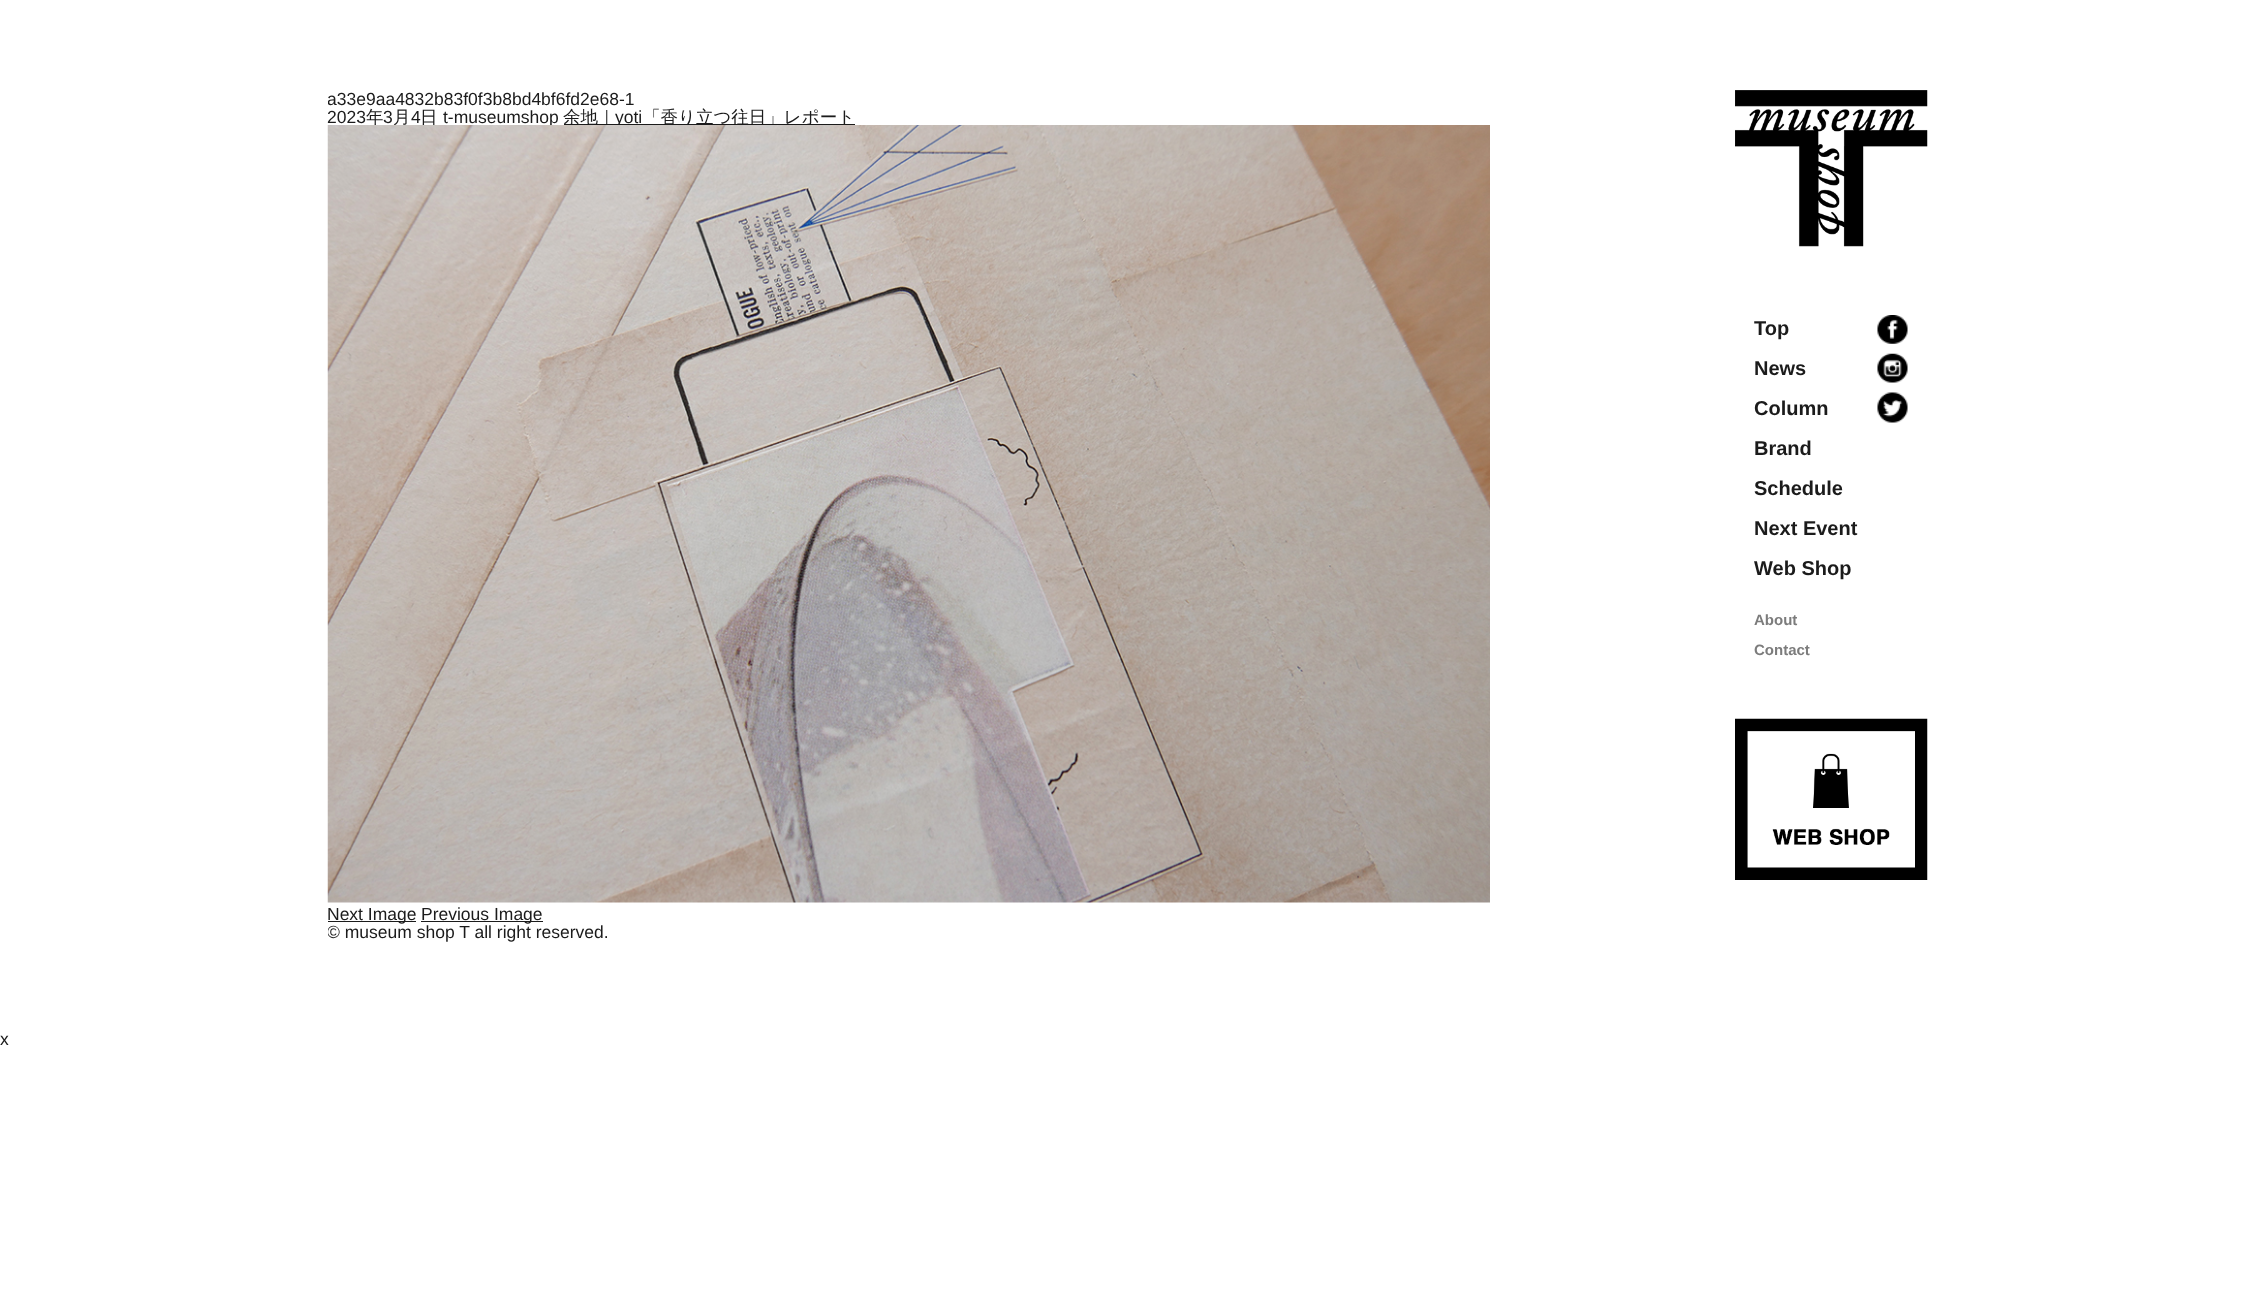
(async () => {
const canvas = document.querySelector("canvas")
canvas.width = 2253
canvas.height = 1302
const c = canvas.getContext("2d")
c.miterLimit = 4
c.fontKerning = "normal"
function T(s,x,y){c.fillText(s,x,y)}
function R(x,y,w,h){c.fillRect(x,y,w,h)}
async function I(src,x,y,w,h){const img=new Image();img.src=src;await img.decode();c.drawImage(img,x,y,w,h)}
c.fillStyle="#fff"
R(0,0,2253,1302)
c.save()
c.beginPath()
c.rect(328,0,1600,1030)
c.clip()
c.font="17.5px Liberation Sans"
c.fillStyle="#1b1b1b"
T("a33e9aa4832b83f0f3b8bd4bf6fd2e68-1",327,105)
c.restore()
c.font="17.5px Liberation Sans"
c.fillStyle="#1b1b1b"
T("2023",327,123)
c.font="500 17.5px WenQuanYi Zen Hei"
T("年",366,123)
c.font="17.5px Liberation Sans"
T("3",383,123)
c.font="500 17.5px WenQuanYi Zen Hei"
T("月",393,123)
c.font="17.5px Liberation Sans"
T("4",411,123)
c.font="500 17.5px WenQuanYi Zen Hei"
T("日",420,123)
c.font="17.5px Liberation Sans"
T("t-museumshop",443,123)
R(564,124,291,1)
c.font="500 17.5px WenQuanYi Zen Hei"
T("余地｜",563,123)
c.font="17.5px Liberation Sans"
T("yoti",615,123)
c.font="500 17.5px WenQuanYi Zen Hei"
T("「香り立つ往日」レポート",643,123)
await I("1.png",327,125,1163,778)
R(328,921,88,1)
c.font="17.5px Liberation Sans"
T("Next Image",327,920)
R(421,921,122,1)
T("Previous Image",421,920)
await I("2.png",1735,90,193,157)
c.font="bold 20px Liberation Sans"
T("Top",1754,335)
T("News",1754,375)
T("Column",1754,415)
T("Brand",1754,455)
T("Schedule",1754,495)
T("Next Event",1754,535)
T("Web Shop",1754,575)
c.font="bold 15px Liberation Sans"
c.fillStyle="#7c7c7c"
T("About",1754,625)
T("Contact",1754,655)
await I("3.png",1877,315,31,29)
await I("4.png",1877,353,31,30)
await I("5.png",1877,392,31,31)
await I("6.png",1735,718,193,162)
c.save()
c.beginPath()
c.rect(328,0,1600,1030)
c.clip()
c.font="17.5px Liberation Sans"
c.fillStyle="#1b1b1b"
T("© museum shop T all right reserved.",327,938)
c.restore()
c.font="17.5px Liberation Sans"
c.fillStyle="#1b1b1b"
T("x",0,1045)
})()
